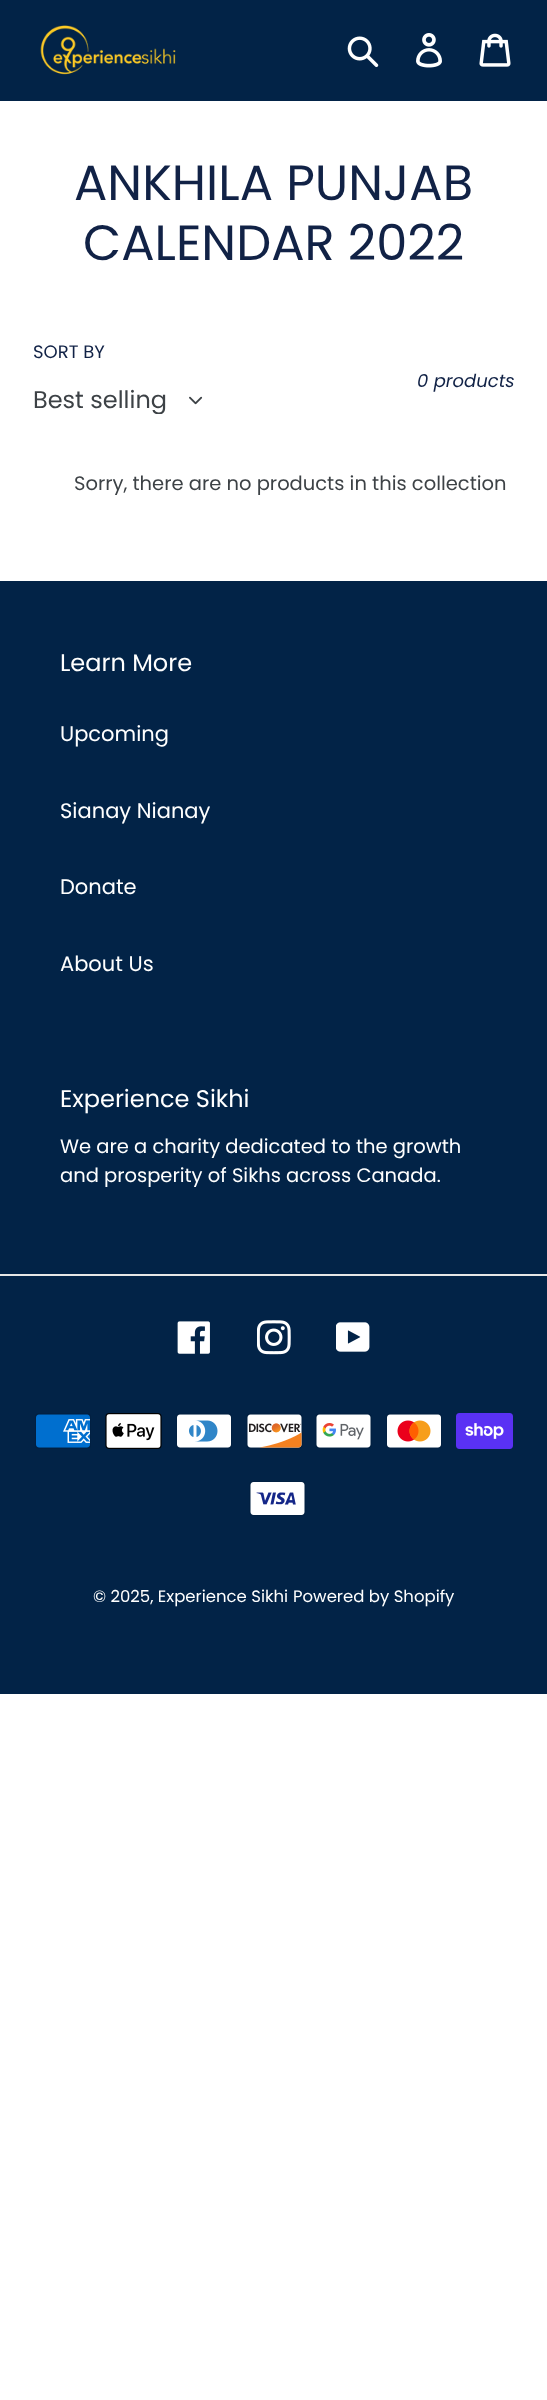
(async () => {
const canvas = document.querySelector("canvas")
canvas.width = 547
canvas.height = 2400
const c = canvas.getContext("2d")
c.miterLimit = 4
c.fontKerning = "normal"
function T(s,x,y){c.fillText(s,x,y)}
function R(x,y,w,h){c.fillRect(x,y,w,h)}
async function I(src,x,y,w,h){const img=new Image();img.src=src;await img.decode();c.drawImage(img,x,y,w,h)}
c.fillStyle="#fff"
R(0,0,547,2400)
c.fillStyle="#022347"
R(0,0,547,101)
await I("1.png",40,25,136,50)
await I("2.png",347,36,32,32)
await I("3.png",416,33,26,35)
await I("4.png",479,33,32,34)
c.font="49.5px Poppins"
c.fillStyle="#112246"
T("ANKHILA PUNJAB",74,200)
T("CALENDAR 2022",83,260)
c.font="18px Poppins"
T("SORT BY",33,358)
c.save()
c.beginPath()
c.rect(33,386,144,28)
c.clip()
c.font="24px Poppins"
c.fillStyle="#3d4246"
T("Best selling",33,408)
c.restore()
await I("5.png",189,396,14,9)
c.font="italic 18px Poppins"
T("0 products",417,387)
c.font="19.5px Poppins"
c.fillStyle="#3d4246"
T("Sorry, there are no products in this collection",74,490)
c.fillStyle="#022347"
R(0,581,547,1113)
c.font="24px Poppins"
c.fillStyle="#fff"
T("Learn More",60,671)
c.font="21px Poppins"
T("Upcoming",60,741)
T("Sianay Nianay",60,818)
T("Donate",60,894)
T("About Us",60,971)
c.font="24px Poppins"
T("Experience Sikhi",60,1107)
c.font="19.5px Poppins"
T("We are a charity dedicated to the growth",60,1153)
T("and prosperity of Sikhs across Canada.",60,1182)
c.fillStyle="#e6e6e6"
R(0,1274,547,2)
await I("6.png",177,1321,33,33)
await I("7.png",257,1320,34,35)
await I("8.png",336,1322,34,30)
await I("9.png",35,1413,56,36)
await I("10.png",105,1413,57,36)
await I("11.png",176,1413,56,36)
await I("12.png",246,1413,57,36)
await I("13.png",315,1413,57,36)
await I("14.png",386,1413,56,36)
await I("15.png",456,1413,57,36)
await I("16.png",249,1481,57,35)
c.font="16.5px Poppins"
c.fillStyle="#fff"
T("© 2025, Experience Sikhi",93,1602)
T("Powered by Shopify",293,1602)
})()
